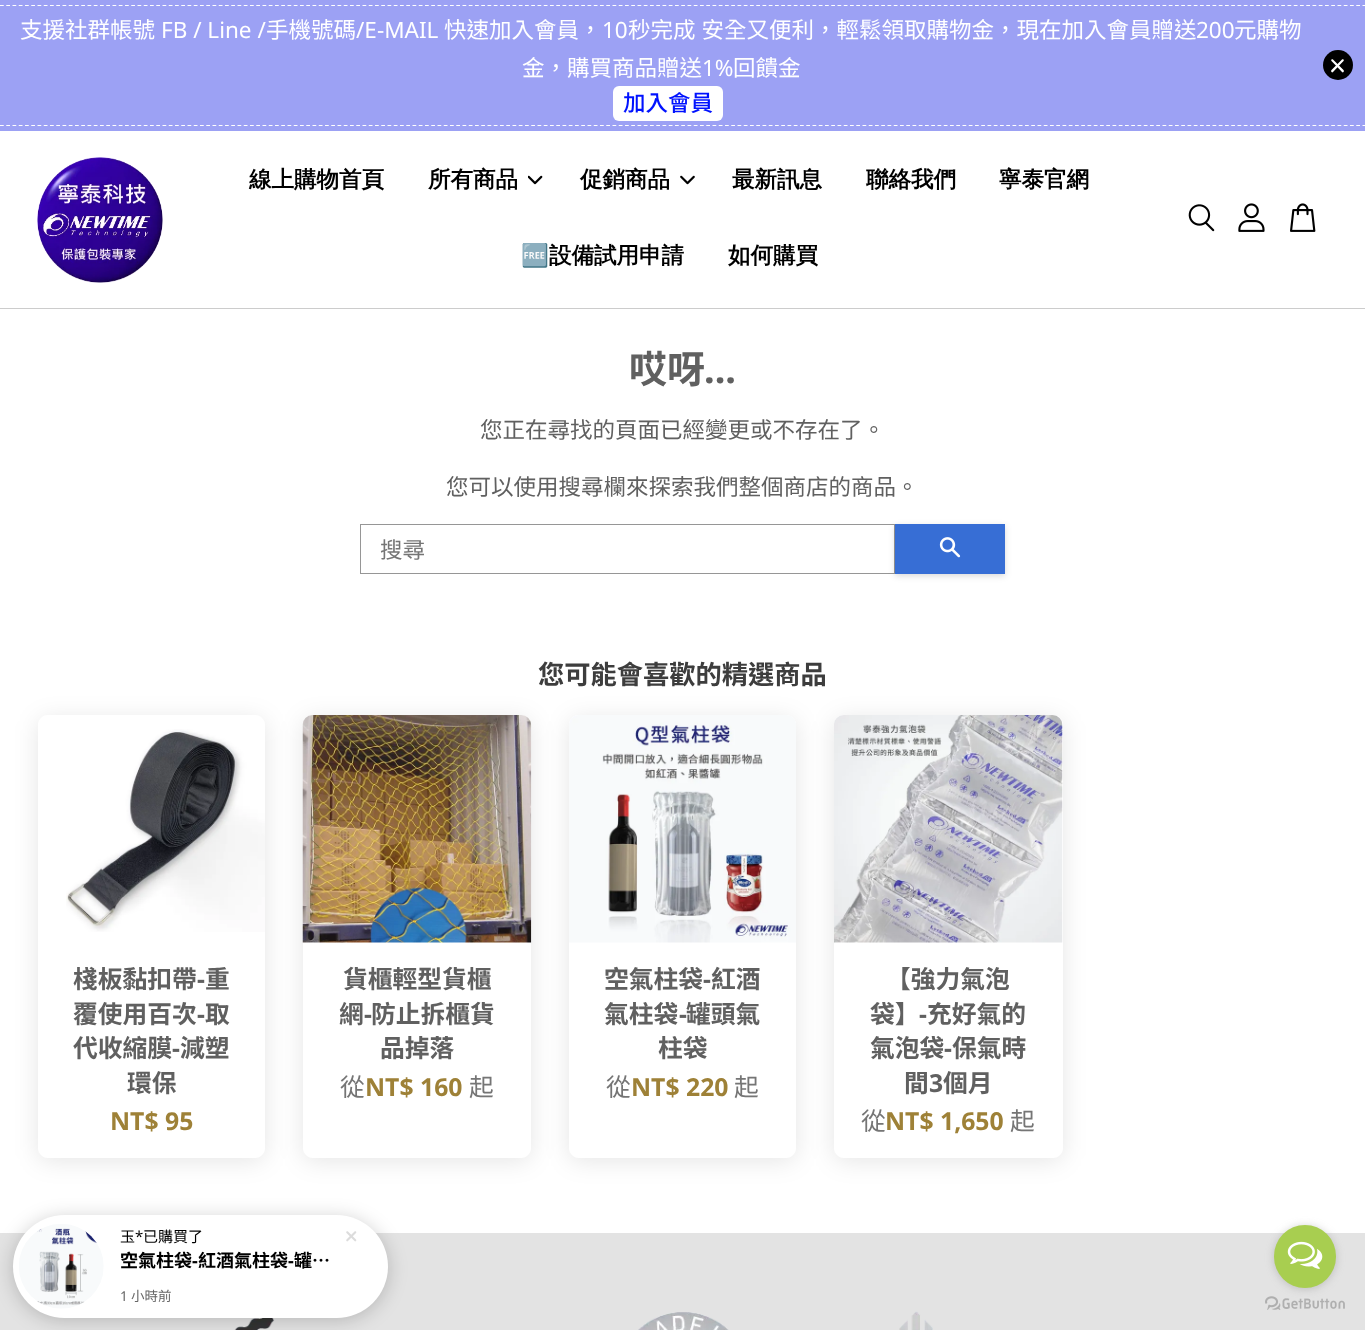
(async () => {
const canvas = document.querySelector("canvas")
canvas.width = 1365
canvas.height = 1330
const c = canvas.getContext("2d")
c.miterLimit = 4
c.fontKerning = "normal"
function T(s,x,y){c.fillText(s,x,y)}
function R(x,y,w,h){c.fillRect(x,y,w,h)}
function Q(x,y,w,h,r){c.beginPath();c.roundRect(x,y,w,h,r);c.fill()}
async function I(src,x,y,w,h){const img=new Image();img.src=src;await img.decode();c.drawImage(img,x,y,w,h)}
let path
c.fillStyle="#fff"
R(0,0,1365,1330)
c.fillStyle="#9ca1f4"
R(0,0,1365,131)
path = new Path2D("M0 5.5h1365")
c.strokeStyle="#fff"
c.lineWidth=1.2
c.setLineDash([3.75,2.5])
c.stroke(path)
path = new Path2D("M0 125.5h1365")
c.stroke(path)
c.font="22.5px Noto Sans TC"
c.fillStyle="#fff"
T("支援社群帳號",20,38)
c.font="22.5px Noto Sans"
T("FB / Line /",161,38)
c.font="22.5px Noto Sans TC"
T("手機號碼",266,38)
c.font="22.5px Noto Sans"
T("/E-MAIL",356,38)
c.font="22.5px Noto Sans TC"
T("快速加入會員，",444,38)
c.font="22.5px Noto Sans"
T("10",602,38)
c.wordSpacing="1px"
c.font="22.5px Noto Sans TC"
T("秒完成 安全又便利，輕鬆領取購物金，現在加入會員贈送",628,38)
c.wordSpacing="0px"
c.font="22.5px Noto Sans"
T("200",1196,38)
c.font="22.5px Noto Sans TC"
T("元購物",1234,38)
T("金，購買商品贈送",522,76)
c.font="22.5px Noto Sans"
T("1%",702,76)
c.font="22.5px Noto Sans TC"
T("回饋金",733,76)
Q(613,86,110,35,6)
c.font="500 22.5px Noto Sans TC"
c.fillStyle="#0012ff"
T("加入會員",623,111)
c.fillStyle="#000"
c.beginPath()
c.arc(1338,65,15,0,7)
c.fill()
c.fillStyle="#fff"
path = new Path2D("M1343.5 59.5c.5 .5 .5 1 0 1.5l-10.5 11c-.5 .5-1 .5-1.5 0c-.5-.5-.5-1.5 0-2l10.5-10.5c.5-.5 1-.5 1.5 0z")
c.fill(path)
path = new Path2D("M1331.5 59.5c.5-.5 1-.5 1.5 0l10.5 10.5c.5 .5 .5 1.5 0 2c-.5 .5-1 .5-1.5 0l-10.5-11c-.5-.5-.5-1 0-1.5z")
c.fill(path)
c.fillStyle="#ccc"
R(0,308,1365,1)
await I("1.png",37,157,126,126)
c.font="bold 22.5px WenQuanYi Zen Hei"
c.fillStyle="#000"
T("線上購物首頁",249,187)
T("所有商品",428,187)
await I("2.png",528,175,15,10)
T("促銷商品",580,187)
await I("3.png",680,175,15,10)
T("最新訊息",732,187)
T("聯絡我們",866,187)
T("寧泰官網",999,187)
c.font="bold 22.5px Noto Color Emoji"
T("🆓",521,263)
c.font="bold 22.5px WenQuanYi Zen Hei"
T("設備試用申請",549,263)
T("如何購買",728,263)
await I("4.png",1188,204,27,28)
await I("5.png",1238,203,27,29)
await I("6.png",1290,203,26,29)
c.font="bold 38px Noto Sans TC"
c.fillStyle="#606060"
T("哎呀",629,383)
c.font="bold 38px Noto Sans"
T("...",704,383)
c.font="22.5px Noto Sans TC"
T("您正在尋找的頁面已經變更或不存在了。",480,438)
T("您可以使用搜尋欄來探索我們整個商店的商品。",446,495)
c.strokeStyle="#969696"
c.lineWidth=1
c.setLineDash([])
c.strokeRect(360.5,524.5,534,49)
c.fillStyle="#757575"
T("搜尋",380,558)
c.fillStyle="#00000026"
c.filter="blur(3px)"
c.beginPath()
c.rect(895,526,110,50)
c.fill()
c.filter="none"
c.fillStyle="#376ed5"
R(895,524,110,50)
await I("7.png",939,537,22,21)
c.font="bold 26.25px Noto Sans TC"
c.fillStyle="#3d3d3d"
T("您可能會喜歡的精選商品",538,684)
c.save()
path = new Path2D("M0 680h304v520h-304zm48 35h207c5.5 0 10 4.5 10 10v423c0 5.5-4.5 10-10 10h-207c-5.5 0-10-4.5-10-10v-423c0-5.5 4.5-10 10-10z")
c.clip(path,"evenodd")
c.fillStyle="#0000001a"
c.filter="blur(12.5px)"
c.beginPath()
c.roundRect(38,719,227,442,10)
c.fill()
c.filter="none"
c.restore()
await I("8.png",66,729,199,203)
c.font="bold 24.75px Noto Sans TC"
c.fillStyle="#606060"
T("棧板黏扣帶",73,988)
c.font="bold 24.75px Noto Sans"
T("-",197,988)
c.font="bold 24.75px Noto Sans TC"
T("重",205,988)
T("覆使用百次",73,1023)
c.font="bold 24.75px Noto Sans"
T("-",197,1023)
c.font="bold 24.75px Noto Sans TC"
T("取",205,1023)
T("代收縮膜",73,1057)
c.font="bold 24.75px Noto Sans"
T("-",172,1057)
c.font="bold 24.75px Noto Sans TC"
T("減塑",180,1057)
T("環保",127,1092)
c.font="bold 24.75px Noto Sans"
c.fillStyle="#9e8137"
T("NT$ 95",110,1130)
c.save()
path = new Path2D("M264 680h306v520h-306zm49 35h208c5.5 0 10 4.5 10 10v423c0 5.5-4.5 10-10 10h-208c-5.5 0-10-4.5-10-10v-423c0-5.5 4.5-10 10-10z")
c.clip(path,"evenodd")
c.fillStyle="#0000001a"
c.filter="blur(12.5px)"
c.beginPath()
c.roundRect(303,719,228,442,10)
c.fill()
c.filter="none"
c.restore()
await I("9.png",302,715,230,228)
c.font="bold 24.75px Noto Sans TC"
c.fillStyle="#606060"
T("貨櫃輕型貨櫃",343,988)
T("網",339,1023)
c.font="bold 24.75px Noto Sans"
T("-",364,1023)
c.font="bold 24.75px Noto Sans TC"
T("防止拆櫃貨",371,1023)
T("品掉落",380,1057)
c.font="24.75px Noto Sans TC"
c.fillStyle="#757575"
T("從",340,1096)
c.font="bold 24.75px Noto Sans"
c.fillStyle="#9e8137"
T("NT$ 160",365,1096)
c.font="24.75px Noto Sans TC"
c.fillStyle="#757575"
T("起",469,1096)
c.save()
path = new Path2D("M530 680h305v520h-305zm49 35h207c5.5 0 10 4.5 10 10v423c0 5.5-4.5 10-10 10h-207c-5.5 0-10-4.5-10-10v-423c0-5.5 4.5-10 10-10z")
c.clip(path,"evenodd")
c.fillStyle="#0000001a"
c.filter="blur(12.5px)"
c.beginPath()
c.roundRect(569,719,227,442,10)
c.fill()
c.filter="none"
c.restore()
await I("10.png",569,715,227,228)
c.font="bold 24.75px Noto Sans TC"
c.fillStyle="#606060"
T("空氣柱袋",604,988)
c.font="bold 24.75px Noto Sans"
T("-",703,988)
c.font="bold 24.75px Noto Sans TC"
T("紅酒",711,988)
T("氣柱袋",604,1023)
c.font="bold 24.75px Noto Sans"
T("-",679,1023)
c.font="bold 24.75px Noto Sans TC"
T("罐頭氣",686,1023)
T("柱袋",658,1057)
c.font="24.75px Noto Sans TC"
c.fillStyle="#757575"
T("從",606,1096)
c.font="bold 24.75px Noto Sans"
c.fillStyle="#9e8137"
T("NT$ 220",631,1096)
c.font="24.75px Noto Sans TC"
c.fillStyle="#757575"
T("起",734,1096)
c.save()
path = new Path2D("M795 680h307v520h-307zm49 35h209c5.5 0 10 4.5 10 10v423c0 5.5-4.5 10-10 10h-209c-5.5 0-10-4.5-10-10v-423c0-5.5 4.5-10 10-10z")
c.clip(path,"evenodd")
c.fillStyle="#0000001a"
c.filter="blur(12.5px)"
c.beginPath()
c.roundRect(834,719,229,442,10)
c.fill()
c.filter="none"
c.restore()
await I("11.png",834,715,229,228)
c.font="bold 24.75px Noto Sans TC"
c.fillStyle="#606060"
T("【強力氣泡",886,988)
T("袋】",870,1023)
c.font="bold 24.75px Noto Sans"
T("-",919,1023)
c.font="bold 24.75px Noto Sans TC"
T("充好氣的",927,1023)
T("氣泡袋",870,1057)
c.font="bold 24.75px Noto Sans"
T("-",944,1057)
c.font="bold 24.75px Noto Sans TC"
T("保氣時",952,1057)
T("間",904,1092)
c.font="bold 24.75px Noto Sans"
T("3",929,1092)
c.font="bold 24.75px Noto Sans TC"
T("個月",943,1092)
c.font="24.75px Noto Sans TC"
c.fillStyle="#757575"
T("從",861,1130)
c.font="bold 24.75px Noto Sans"
c.fillStyle="#9e8137"
T("NT$ 1,650",885,1130)
c.font="24.75px Noto Sans TC"
c.fillStyle="#757575"
T("起",1010,1130)
c.fillStyle="#e3e3e3"
R(0,1233,1365,97)
await I("12.png",234,1318,41,12)
await I("13.png",638,1312,91,18)
await I("14.png",899,1311,34,19)
c.fillStyle="#00000033"
c.filter="blur(9.5px)"
c.beginPath()
c.roundRect(13,1218,375,102,51)
c.fill()
c.filter="none"
c.fillStyle="#fff"
Q(13,1215,375,103,51.5)
await I("15.png",19,1224,85,85)
c.font="15px Noto Sans TC"
c.fillStyle="#000"
T("玉",120,1242)
c.font="15px Noto Sans"
T("*",135,1242)
c.font="15px Noto Sans TC"
T("已購買了",143,1242)
c.font="bold 18px Noto Sans TC"
T("空氣柱袋",120,1267)
c.font="bold 18px Noto Sans"
T("-",192,1267)
c.font="bold 18px Noto Sans TC"
T("紅酒氣柱袋",198,1267)
c.font="bold 18px Noto Sans"
T("-",288,1267)
c.font="bold 18px Noto Sans TC"
T("罐…",294,1267)
c.font="13.5px Noto Sans"
c.fillStyle="#666"
T("1",120,1301)
c.font="13.5px Noto Sans TC"
T("小時前",131,1301)
c.fillStyle="#dcdcdc"
path = new Path2D("M356 1231.5c.5 .5 .5 1 0 1.5l-8 8c-.5 .5-1 .5-1.5 0c-.5-.5-.5-1 0-1.5l8-8c.5-.5 1-.5 1.5 0z")
c.fill(path)
path = new Path2D("M346.5 1231.5c.5-.5 1-.5 1.5 0l8 8c.5 .5 .5 1 0 1.5c-.5 .5-1 .5-1.5 0l-8-8c-.5-.5-.5-1 0-1.5z")
c.fill(path)
await I("17.png",1265,1296,80,14)
c.fillStyle="#88888866"
c.filter="blur(4.5px)"
c.beginPath()
c.roundRect(1274,1226,62,63,31)
c.fill()
c.filter="none"
c.fillStyle="#a8ce50"
Q(1274,1225,62,63,31)
await I("16.png",1287,1241,36,28)
})()
